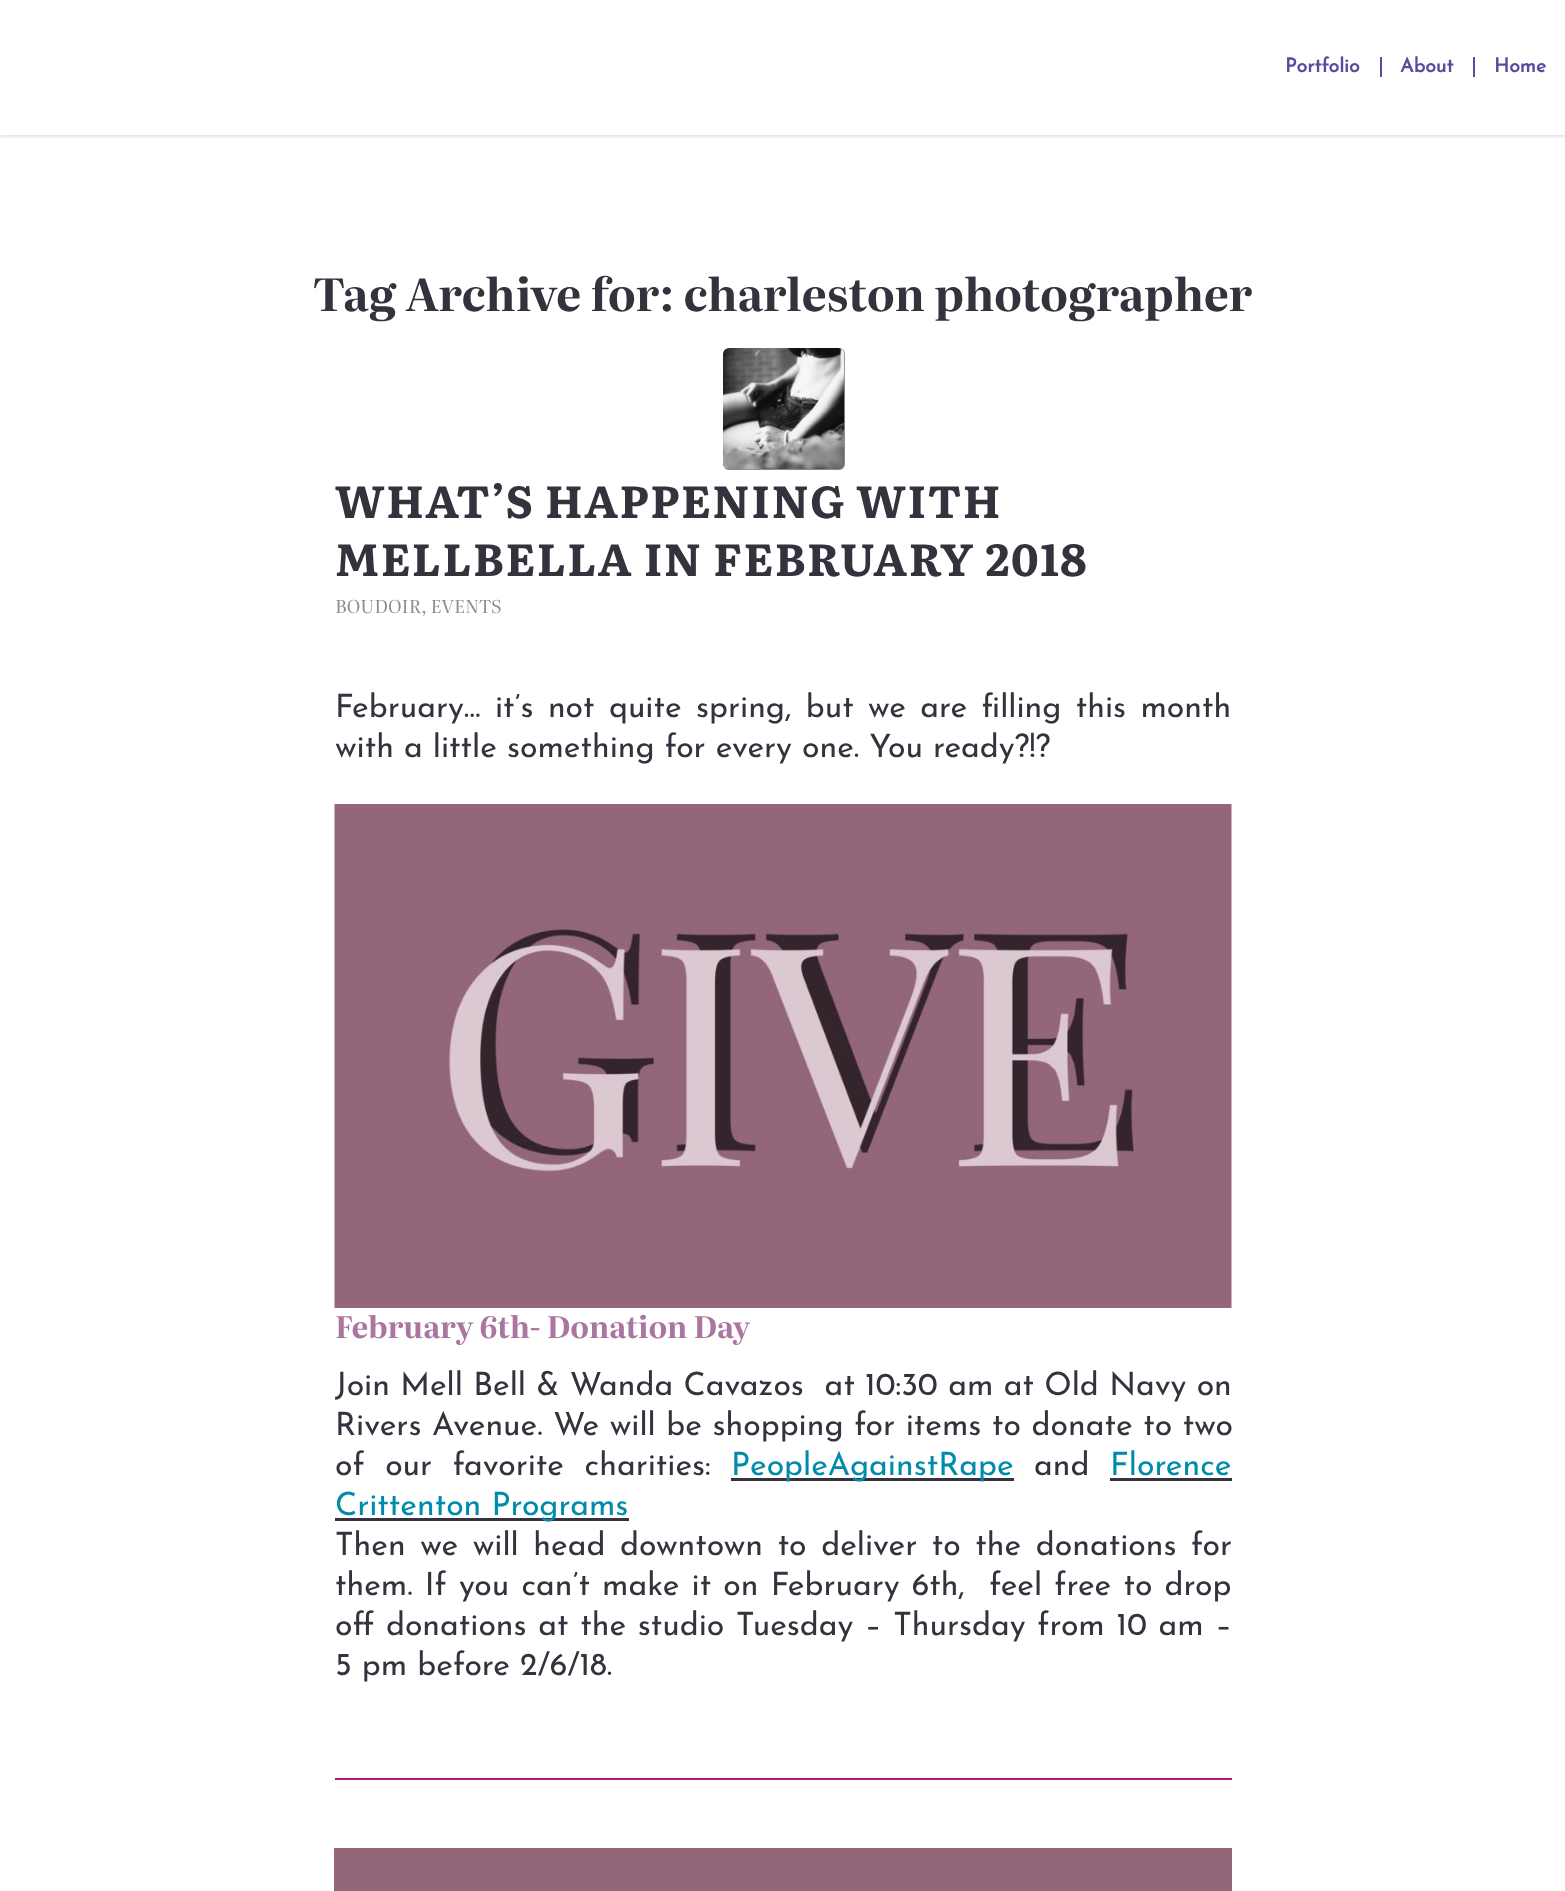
(async () => {
const canvas = document.querySelector("canvas")
canvas.width = 1565
canvas.height = 1891
const c = canvas.getContext("2d")
c.miterLimit = 4
c.fontKerning = "normal"
function T(s,x,y){c.fillText(s,x,y)}
function R(x,y,w,h){c.fillRect(x,y,w,h)}
function Q(x,y,w,h,r){c.beginPath();c.roundRect(x,y,w,h,r);c.fill()}
async function I(src,x,y,w,h){const img=new Image();img.src=src;await img.decode();c.drawImage(img,x,y,w,h)}
c.fillStyle="#fff"
R(0,0,1565,1891)
c.save()
c.beginPath()
c.rect(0,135,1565,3)
c.clip()
c.fillStyle="#0000001a"
c.filter="blur(1.5px)"
c.beginPath()
c.rect(-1,-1,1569,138)
c.fill()
c.filter="none"
c.restore()
c.font="bold 19.5px Josefin Sans"
c.fillStyle="#5e499e"
T("Portfolio",1285,72)
T("About",1400,72)
R(1380,57,2,20)
T("Home",1494,72)
R(1473,57,2,20)
c.font="bold 45px Literata"
c.fillStyle="#35313d"
T("Tag Archive for: charleston photographer",313,311)
c.fillStyle="#889095"
Q(723,348,122,122,6)
await I("1.png",723,348,122,122)
c.letterSpacing="1.5px"
c.font="bold 44.8px 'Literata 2'"
c.fillStyle="#35313d"
T("WHAT’S HAPPENING WITH",335,518)
T("MELLBELLA IN FEBRUARY 2018",335,576)
c.letterSpacing="0px"
c.font="18px Literata"
c.fillStyle="#889095"
T("BOUDOIR, EVENTS",335,613)
c.wordSpacing="4.25px"
c.font="100 32px Josefin Sans"
c.fillStyle="#35313d"
T("February… it’s not quite spring, but we are filling this month",335,717)
c.wordSpacing="0px"
T("with a little something for every one. You ready?!?",335,757)
await I("2.png",334,804,898,504)
c.font="bold 30px Literata"
c.fillStyle="#aa75a1"
T("February 6th- Donation Day",335,1338)
c.wordSpacing="0.25px"
c.font="100 32px Josefin Sans"
c.fillStyle="#35313d"
T("Join Mell Bell & Wanda Cavazos  at",335,1395)
T("10:30 am at Old Navy on",865,1395)
c.wordSpacing="0.5px"
T("Rivers Avenue. We will be shopping for items to donate to two",335,1435)
c.wordSpacing="10.5px"
T("of our favorite charities:",335,1475)
R(731,1478,283,3)
c.wordSpacing="0px"
c.fillStyle="#008baa"
T("PeopleAgainstRape",731,1475)
c.fillStyle="#35313d"
T("and",1034,1475)
c.fillStyle="#008baa"
T("Florence",1110,1475)
c.fillStyle="#35313d"
R(1110,1478,122,3)
R(335,1518,294,3)
c.fillStyle="#008baa"
T("Crittenton Programs",335,1515)
c.wordSpacing="4.5px"
c.fillStyle="#35313d"
T("Then we will head downtown to deliver to the donations for",335,1555)
c.wordSpacing="2.1px"
T("them. If you can’t make it on February 6th,  feel free to drop",335,1595)
c.wordSpacing="1.6px"
T("off donations at the studio Tuesday – Thursday from 10 am –",335,1635)
c.wordSpacing="0px"
T("5 pm before 2/6/18.",335,1675)
c.fillStyle="#b0187d"
R(335,1778,897,2)
c.fillStyle="#93667a"
R(334,1848,898,43)
})()
